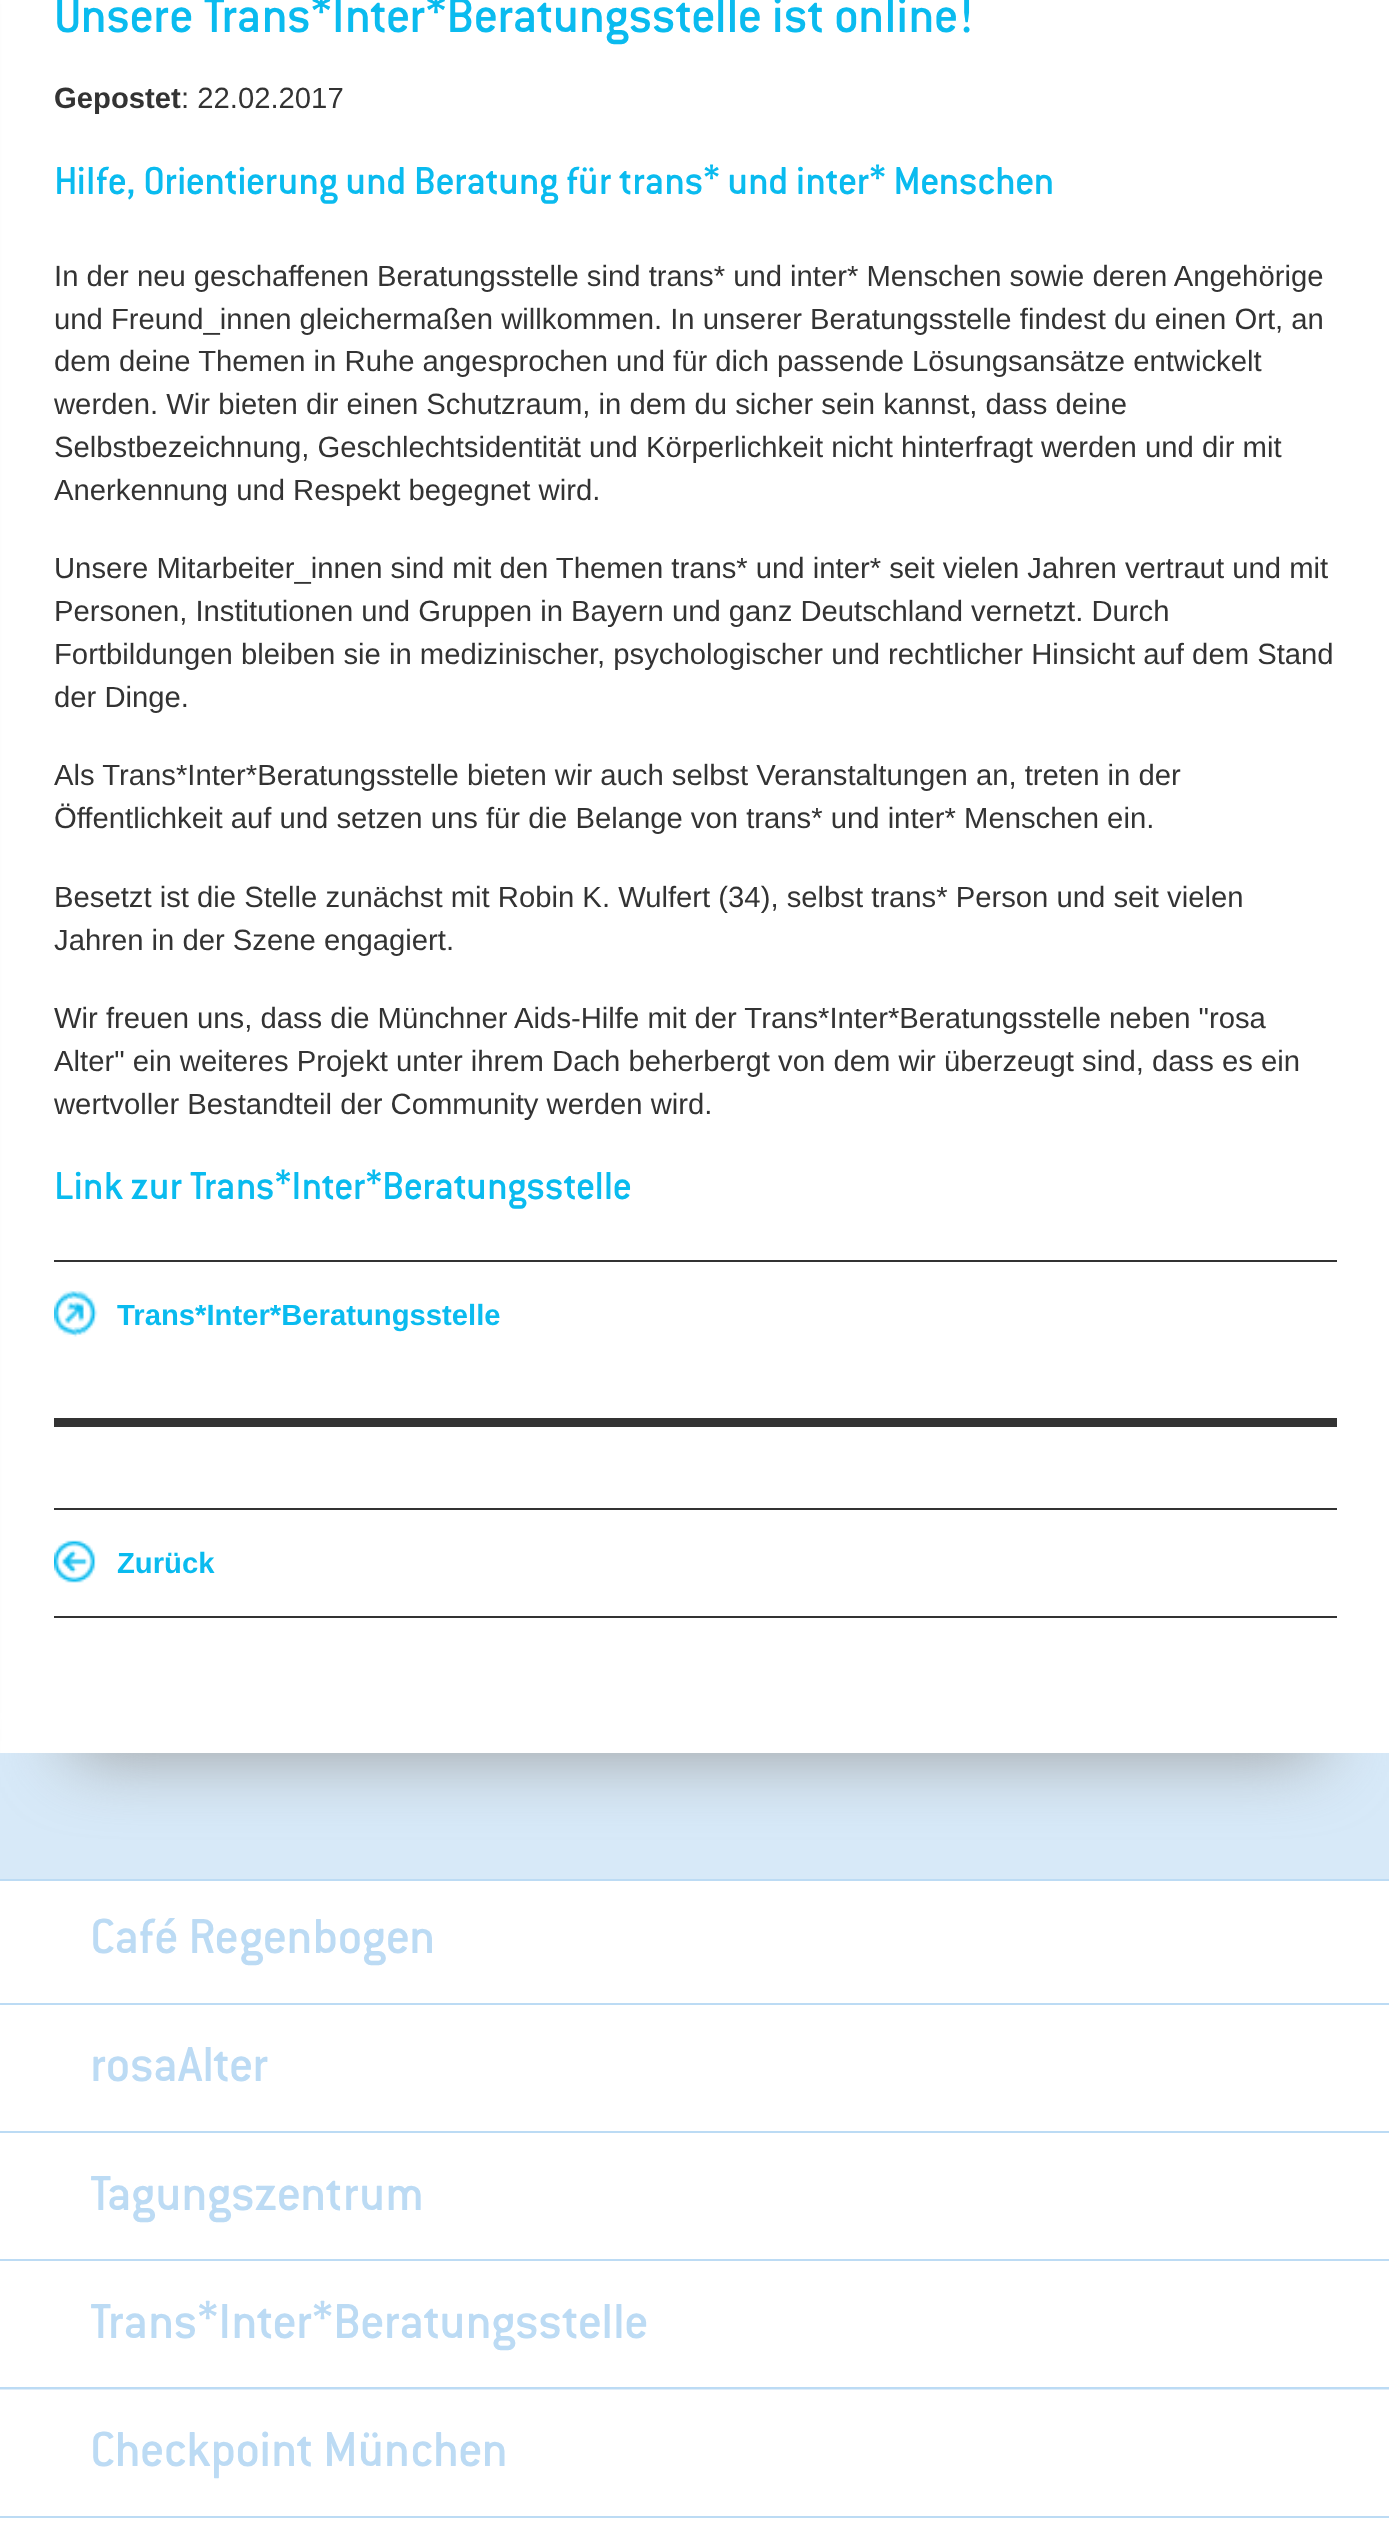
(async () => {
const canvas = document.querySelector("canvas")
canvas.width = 1389
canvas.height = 2545
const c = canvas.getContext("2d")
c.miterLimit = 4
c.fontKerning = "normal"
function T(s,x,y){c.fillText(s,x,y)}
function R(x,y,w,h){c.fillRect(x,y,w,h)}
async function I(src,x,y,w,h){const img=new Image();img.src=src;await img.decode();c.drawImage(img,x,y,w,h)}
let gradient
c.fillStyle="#fff"
R(0,0,1389,2545)
gradient = c.createLinearGradient(695,-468,695,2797)
gradient.addColorStop(.75,"#d7e9f8")
gradient.addColorStop(.85,"#fff")
c.fillStyle = gradient
R(0,1753,1389,126)
await I("1.png",0,2389,1389,1)
c.fillStyle="#999"
c.filter="blur(36px)"
c.beginPath()
c.rect(72,-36,1247,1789)
c.fill()
c.filter="none"
c.fillStyle="#fff"
R(2,0,1387,1753)
c.font="500 54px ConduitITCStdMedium"
c.fillStyle="#0abbef"
T("Unsere Trans*Inter*Beratungsstelle ist online!",54,32)
c.font="bold 29.25px Liberation Sans"
c.fillStyle="#333"
T("Gepostet",54,108)
c.font="29.25px Liberation Sans"
T(": 22.02.2017",181,108)
c.font="500 42.75px ConduitITCStdMedium"
c.fillStyle="#0abbef"
T("Hilfe, Orientierung und Beratung für trans* und inter* Menschen",54,194)
c.font="29.25px Liberation Sans"
c.fillStyle="#333"
T("In der neu geschaffenen Beratungsstelle sind trans* und inter* Menschen sowie deren Angehörige",54,286)
T("und Freund_innen gleichermaßen willkommen. In unserer Beratungsstelle findest du einen Ort, an",54,329)
T("dem deine Themen in Ruhe angesprochen und für dich passende Lösungsansätze entwickelt",54,371)
T("werden. Wir bieten dir einen Schutzraum, in dem du sicher sein kannst, dass deine",54,414)
T("Selbstbezeichnung, Geschlechtsidentität und Körperlichkeit nicht hinterfragt werden und dir mit",54,457)
T("Anerkennung und Respekt begegnet wird.",54,500)
T("Unsere Mitarbeiter_innen sind mit den Themen trans* und inter* seit vielen Jahren vertraut und mit",54,578)
T("Personen, Institutionen und Gruppen in Bayern und ganz Deutschland vernetzt. Durch",54,621)
T("Fortbildungen bleiben sie in medizinischer, psychologischer und rechtlicher Hinsicht auf dem Stand",54,664)
T("der Dinge.",54,707)
T("Als Trans*Inter*Beratungsstelle bieten wir auch selbst Veranstaltungen an, treten in der",54,785)
T("Öffentlichkeit auf und setzen uns für die Belange von trans* und inter* Menschen ein.",54,828)
T("Besetzt ist die Stelle zunächst mit Robin K. Wulfert (34), selbst trans* Person und seit vielen",54,907)
T("Jahren in der Szene engagiert.",54,950)
T("Wir freuen uns, dass die Münchner Aids-Hilfe mit der Trans*Inter*Beratungsstelle neben \"rosa",54,1028)
T("Alter\" ein weiteres Projekt unter ihrem Dach beherbergt von dem wir überzeugt sind, dass es ein",54,1071)
T("wertvoller Bestandteil der Community werden wird.",54,1114)
c.font="500 42.75px ConduitITCStdMedium"
c.fillStyle="#0abbef"
T("Link zur Trans*Inter*Beratungsstelle",54,1199)
await I("2.png",54,1290,44,47)
c.fillStyle="#333"
R(54,1260,1283,2)
R(54,1418,1283,9)
c.font="bold 29.25px Liberation Sans"
c.fillStyle="#0abbef"
T("Trans*Inter*Beratungsstelle",117,1325)
await I("3.png",54,1540,42,43)
c.fillStyle="#333"
R(54,1508,1283,2)
R(54,1616,1283,2)
c.fillStyle="#0abbef"
T("Zurück",117,1573)
c.fillStyle="#bcdbf4"
R(0,1879,1389,2)
R(0,2003,1389,2)
c.font="500 54px ConduitITCStdMedium"
T("Café Regenbogen",90,1953)
R(0,2131,1389,2)
T("rosaAlter",90,2081)
R(0,2259,1389,2)
T("Tagungszentrum",90,2210)
R(0,2387,1389,2)
T("Trans*Inter*Beratungsstelle",90,2338)
R(0,2516,1389,2)
T("Checkpoint München",90,2466)
})()
